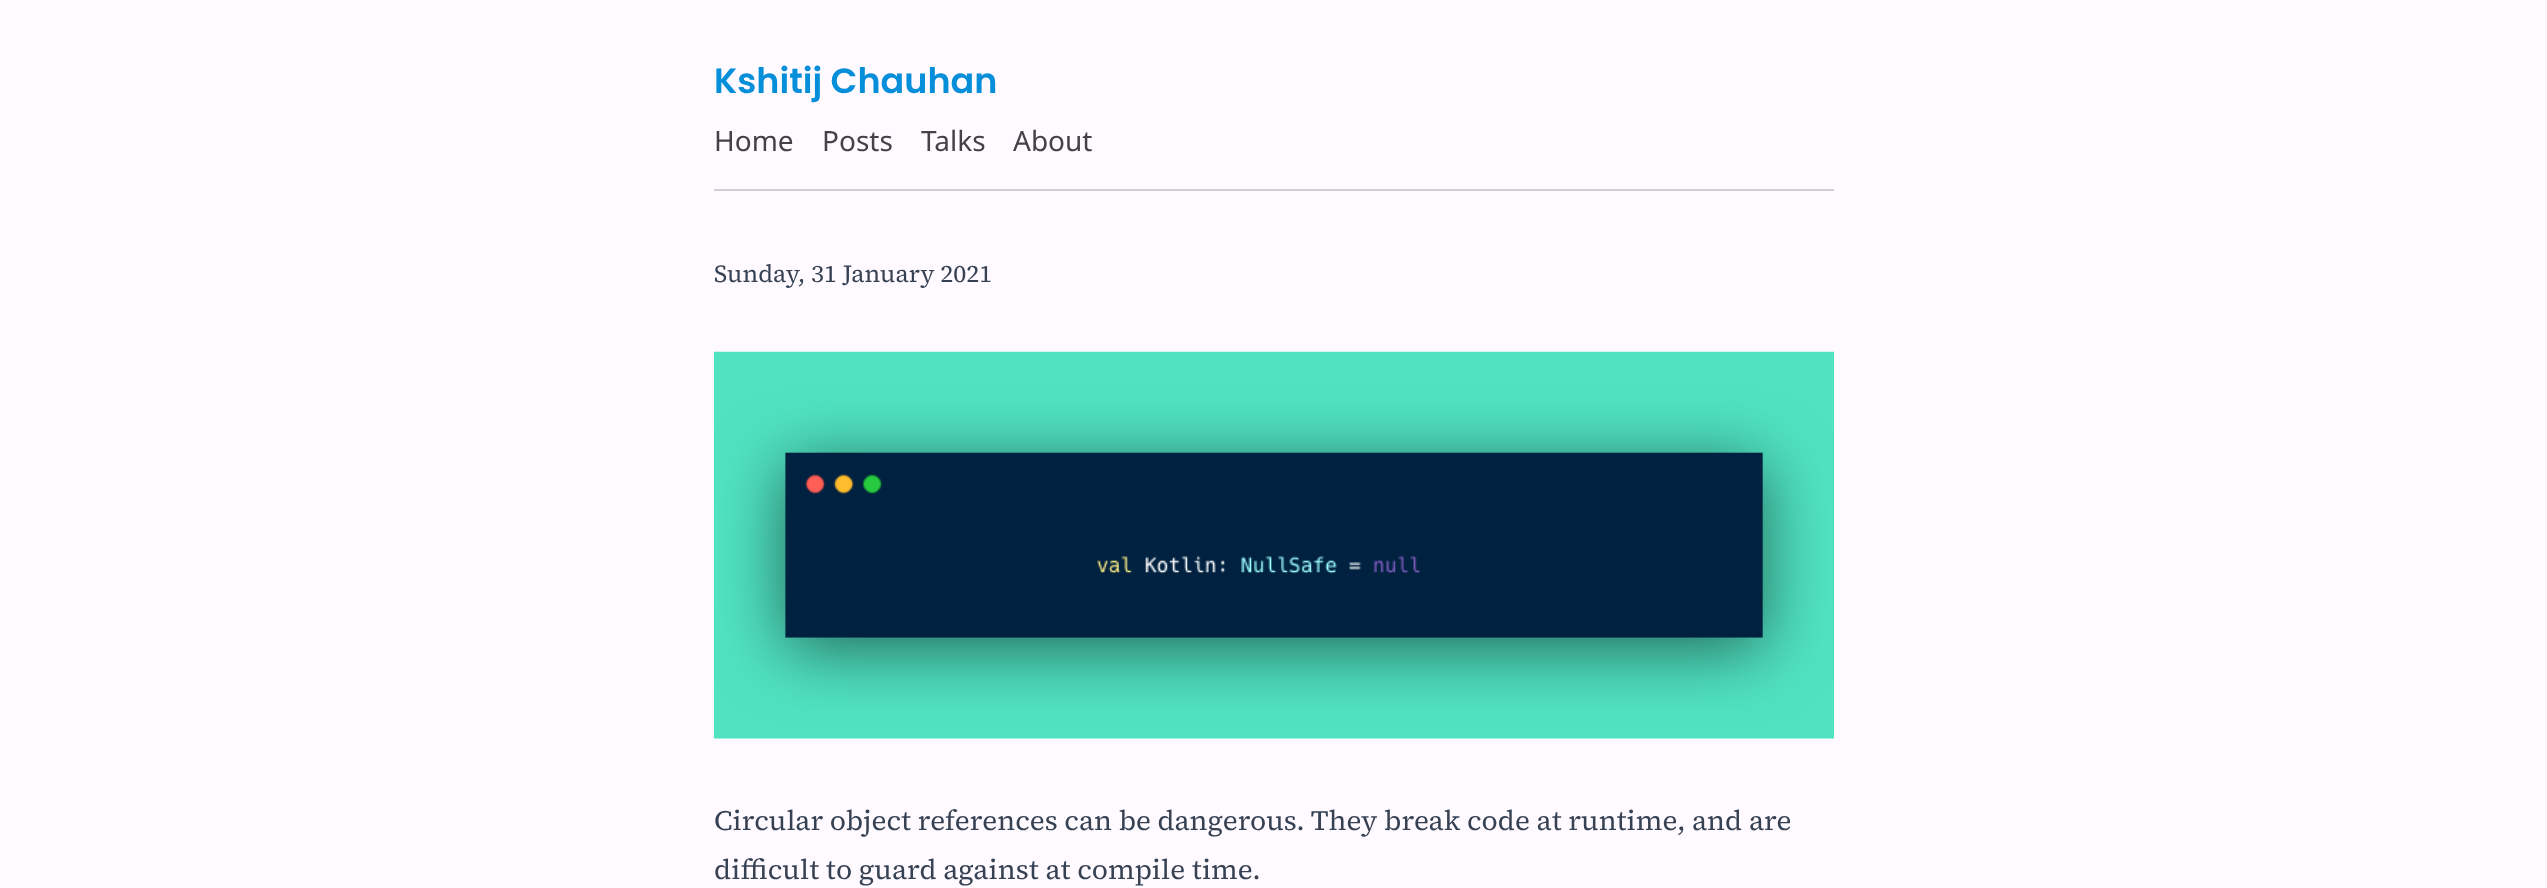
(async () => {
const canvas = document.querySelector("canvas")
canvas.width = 2547
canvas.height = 888
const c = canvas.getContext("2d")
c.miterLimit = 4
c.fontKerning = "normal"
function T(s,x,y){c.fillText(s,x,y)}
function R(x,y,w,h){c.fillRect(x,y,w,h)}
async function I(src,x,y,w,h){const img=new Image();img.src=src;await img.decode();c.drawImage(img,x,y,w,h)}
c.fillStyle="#fffaff"
R(0,0,2547,888)
c.fillStyle="#d0d0d0"
R(714,189,1120,2)
c.font="600 35px Poppins"
c.fillStyle="#058ed9"
T("Kshitij Chauhan",714,93)
c.font="28px Noto Sans"
c.fillStyle="#434343"
T("Home",714,151)
T("Posts",822,151)
T("Talks",921,151)
T("About",1013,151)
c.font="24.5px 'Source Serif 4'"
c.fillStyle="#364153"
T("Sunday, 31 January 2021",714,282)
await I("1.png",714,351,1120,388)
c.font="28px 'Source Serif 4'"
T("Circular object references can be dangerous. They break code at runtime, and are",714,830)
T("difficult to guard against at compile time.",714,879)
})()
